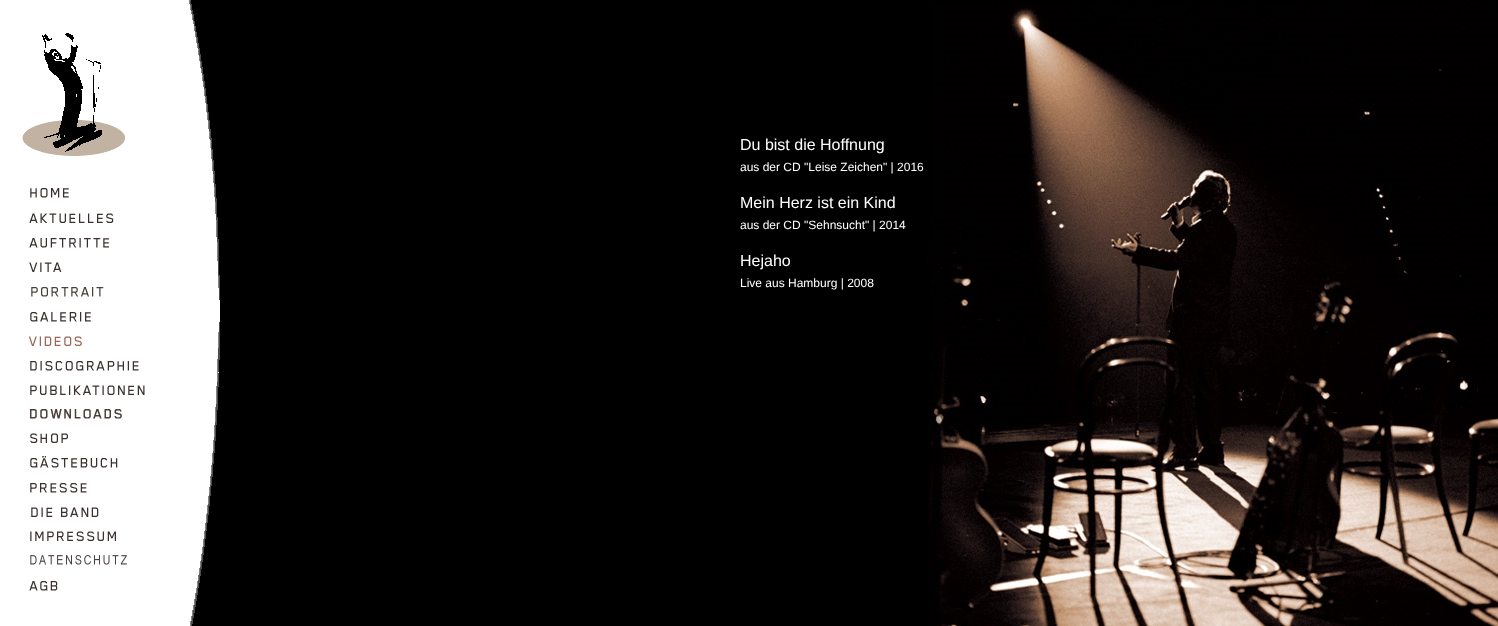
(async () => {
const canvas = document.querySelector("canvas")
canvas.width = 1498
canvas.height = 626
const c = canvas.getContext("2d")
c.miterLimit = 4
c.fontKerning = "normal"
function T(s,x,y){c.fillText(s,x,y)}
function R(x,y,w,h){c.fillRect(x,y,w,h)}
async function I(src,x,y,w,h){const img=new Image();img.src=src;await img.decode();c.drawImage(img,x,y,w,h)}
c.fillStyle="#000"
R(0,0,1498,626)
await I("1.png",0,0,220,626)
await I("2.png",22,33,103,123)
await I("3.png",30,188,39,10)
await I("4.png",29,213,85,10)
await I("5.png",29,238,80,10)
await I("6.png",29,262,33,10)
await I("7.png",31,287,73,10)
await I("8.png",30,312,61,10)
await I("9.png",28,336,56,10)
await I("10.png",30,361,109,10)
await I("11.png",30,385,115,10)
await I("12.png",30,409,92,10)
await I("13.png",30,433,38,10)
await I("14.png",30,456,88,12)
await I("15.png",30,483,57,10)
await I("16.png",31,507,68,10)
await I("17.png",30,531,86,10)
await I("18.png",30,555,97,10)
await I("19.png",29,581,29,10)
await I("20.png",927,2,571,624)
c.font="16px Liberation Sans"
c.fillStyle="#fff"
T("Du bist die Hoffnung",740,150)
c.font="12px Liberation Sans"
T("aus der CD \"Leise Zeichen\" | 2016",740,171)
c.font="16px Liberation Sans"
T("Mein Herz ist ein Kind",740,208)
c.font="12px Liberation Sans"
T("aus der CD \"Sehnsucht\" | 2014",740,229)
c.font="16px Liberation Sans"
T("Hejaho",740,266)
c.font="12px Liberation Sans"
T("Live aus Hamburg | 2008",740,287)
})()
